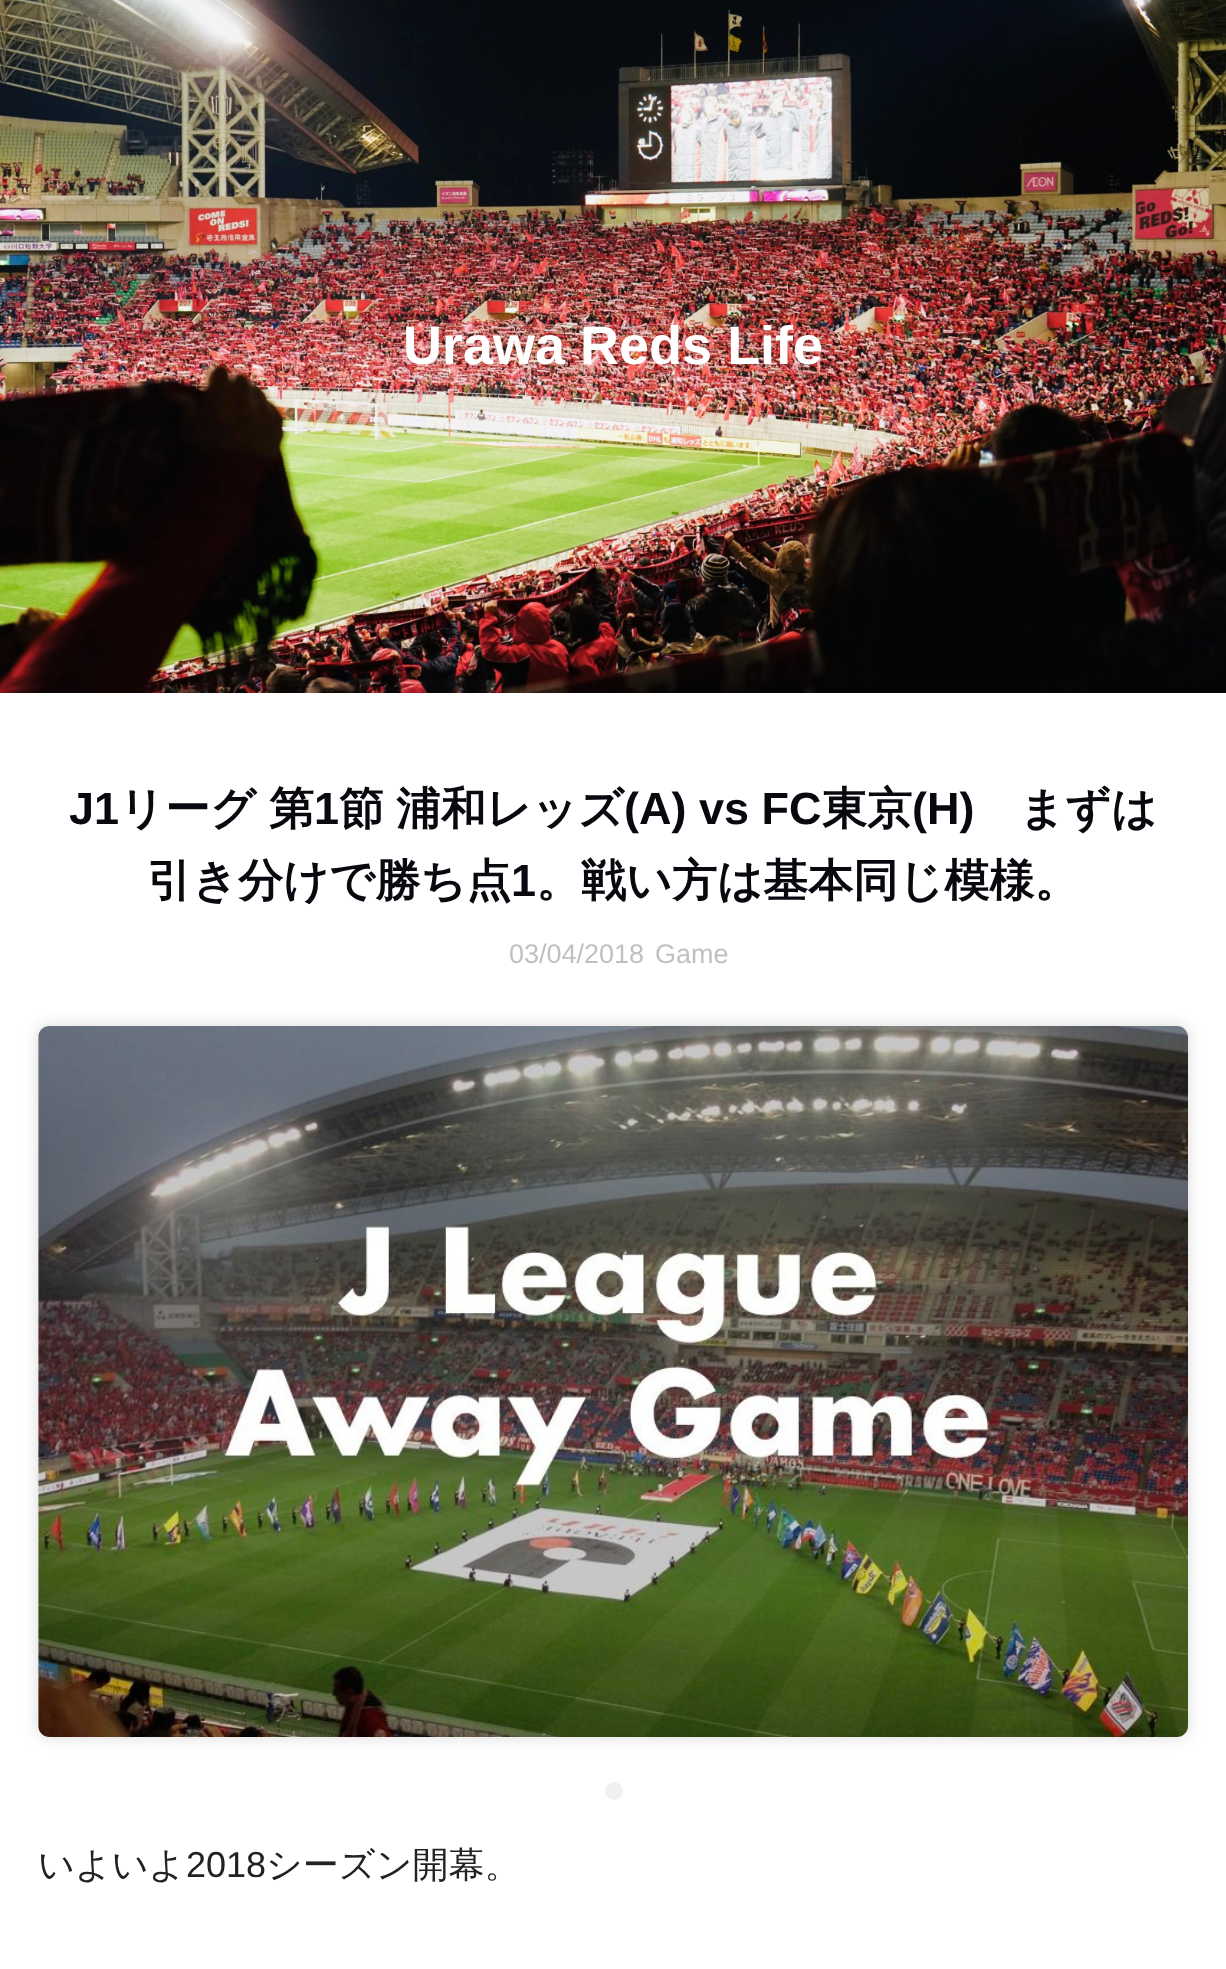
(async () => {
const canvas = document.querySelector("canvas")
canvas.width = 1226
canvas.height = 1969
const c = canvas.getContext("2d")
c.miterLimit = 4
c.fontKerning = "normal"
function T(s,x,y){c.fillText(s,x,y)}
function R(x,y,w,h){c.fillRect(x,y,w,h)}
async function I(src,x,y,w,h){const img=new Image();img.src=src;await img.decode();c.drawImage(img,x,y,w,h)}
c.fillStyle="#fff"
R(0,0,1226,1969)
await I("1.png",0,0,1226,693)
c.font="bold 54px Liberation Sans"
T("Urawa Reds Life",403,364)
c.font="bold 45px Liberation Sans"
c.fillStyle="#0a070f"
T("J1",69,824)
c.font="bold 45px WenQuanYi Zen Hei"
T("リーグ",119,824)
T("第",269,824)
c.font="bold 45px Liberation Sans"
T("1",314,824)
c.font="bold 45px WenQuanYi Zen Hei"
T("節",339,824)
T("浦和レッズ",396,824)
c.font="bold 45px Liberation Sans"
T("(A) vs FC",624,824)
c.font="bold 45px WenQuanYi Zen Hei"
T("東京",822,824)
c.font="bold 45px Liberation Sans"
T("(H)",912,824)
c.font="bold 45px WenQuanYi Zen Hei"
T("まずは",1019,824)
T("引き分けで勝ち点",147,896)
c.font="bold 45px Liberation Sans"
T("1",511,896)
c.font="bold 45px WenQuanYi Zen Hei"
T("。戦い方は基本同じ模様。",536,896)
c.font="27px Liberation Sans"
c.fillStyle="#c0c0c0"
T("03/04/2018",509,963)
T("Game",655,963)
c.fillStyle="#00000026"
c.filter="blur(8px)"
c.beginPath()
c.roundRect(38,1026,1150,711,11)
c.fill()
c.filter="none"
await I("2.png",38,1026,1150,711)
c.fillStyle="#f0f0f0"
c.beginPath()
c.arc(614,1791,9,0,7)
c.fill()
c.font="500 36px WenQuanYi Zen Hei"
c.fillStyle="#222"
T("いよいよ",38,1877)
c.font="36px Liberation Sans"
T("2018",186,1877)
c.font="500 36px WenQuanYi Zen Hei"
T("シーズン開幕。",266,1877)
})()
